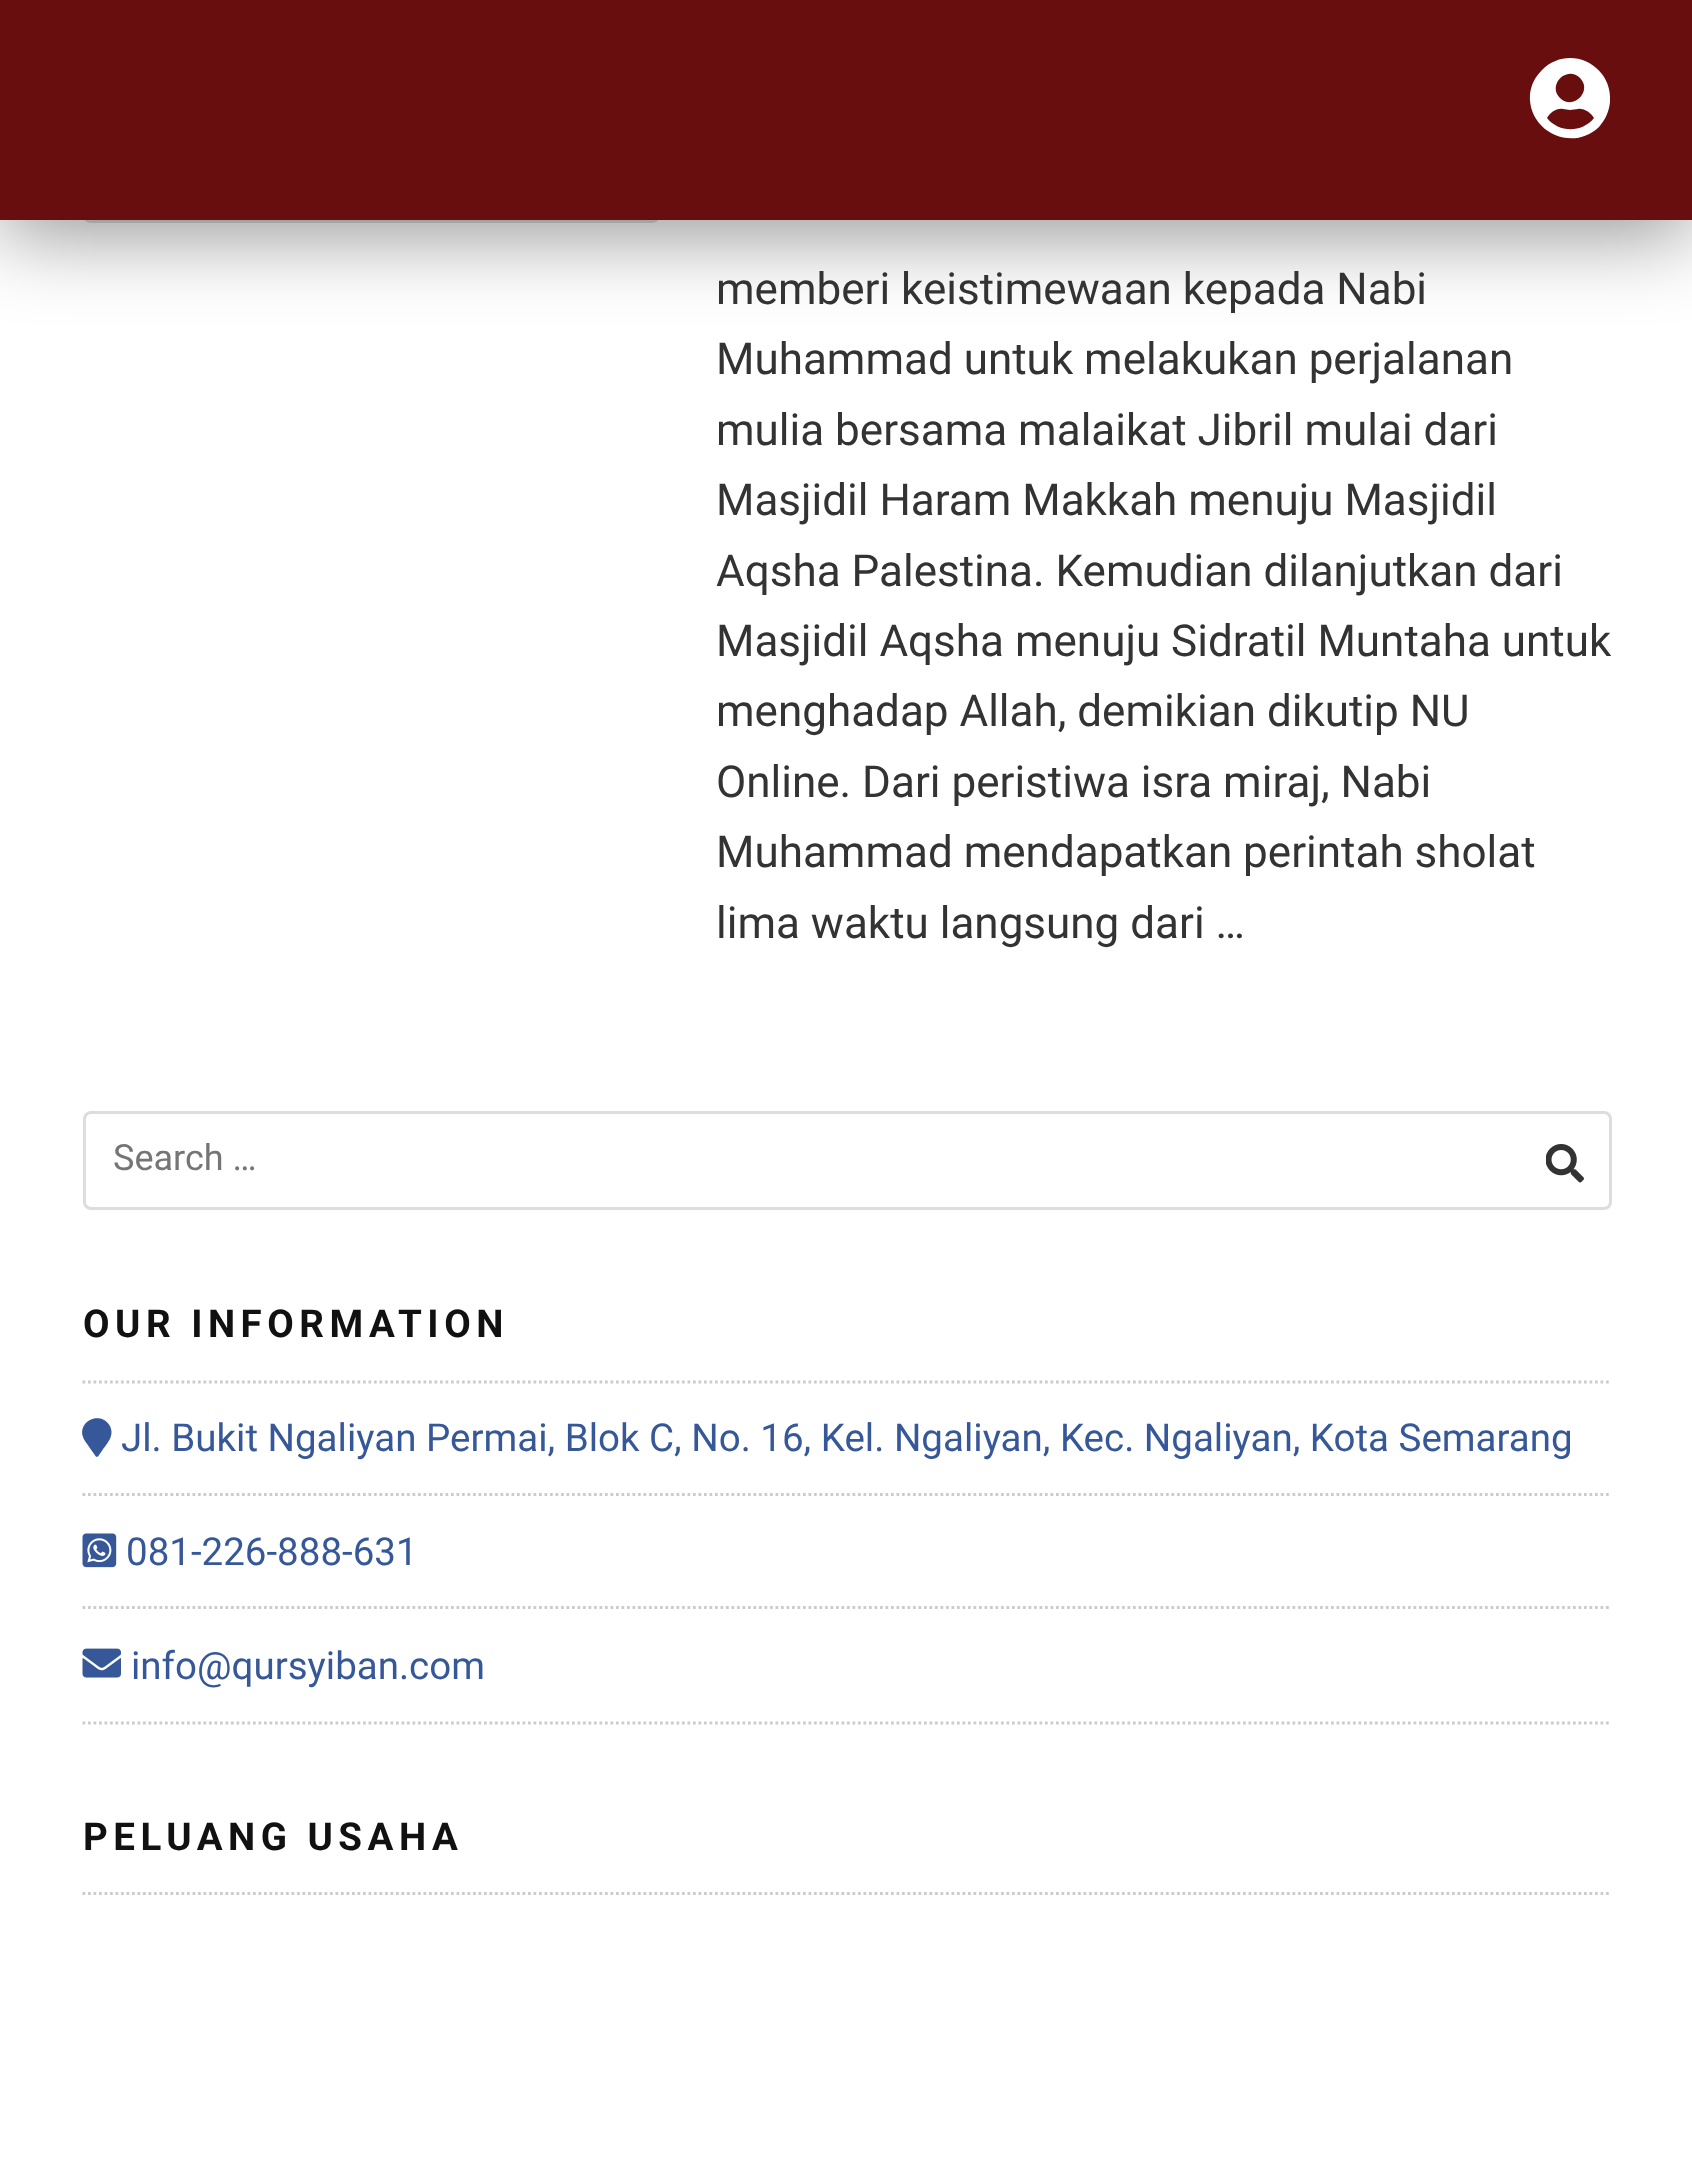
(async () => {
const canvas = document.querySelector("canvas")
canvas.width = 1692
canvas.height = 2184
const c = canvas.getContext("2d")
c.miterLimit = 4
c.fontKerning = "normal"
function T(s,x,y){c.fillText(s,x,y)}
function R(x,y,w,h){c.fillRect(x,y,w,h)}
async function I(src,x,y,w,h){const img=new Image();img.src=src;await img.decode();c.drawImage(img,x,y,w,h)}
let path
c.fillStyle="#fff"
R(0,0,1692,2184)
c.beginPath()
c.roundRect(84.5,-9.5,574,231,6.5)
c.strokeStyle="#ddd"
c.lineWidth=3
c.stroke()
c.fillStyle="#0000006b"
c.filter="blur(41px)"
c.beginPath()
c.rect(0,14,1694,220)
c.fill()
c.filter="none"
c.fillStyle="#690e0e"
R(0,0,1692,220)
c.fillStyle="#fff"
path = new Path2D("M1542 70c27-27 71-5 68 32c-1 10-5 18-11 25c-27 26-72 4-69-33c1-9 5-17 12-24zm38 8c-13-13-33 7-20 20c13 13 33-7 20-20zm-33 40c12 15 35 15 47 0c-3-5-10-10-16-9l-8 1l-7-1c-7-1-13 4-16 9z")
c.fill(path)
c.font="44px Roboto"
c.fillStyle="#333"
T("memberi keistimewaan kepada Nabi",716,304)
T("Muhammad untuk melakukan perjalanan",716,374)
T("mulia bersama malaikat Jibril mulai dari",716,445)
T("Masjidil Haram Makkah menuju Masjidil",716,515)
T("Aqsha Palestina. Kemudian dilanjutkan dari",716,586)
T("Masjidil Aqsha menuju Sidratil Muntaha untuk",716,656)
T("menghadap Allah, demikian dikutip NU",716,726)
T("Online. Dari peristiwa isra miraj, Nabi",716,797)
T("Muhammad mendapatkan perintah sholat",716,867)
T("lima waktu langsung dari …",716,938)
c.beginPath()
c.roundRect(84.5,1112.5,1526,96,6.5)
c.stroke()
c.font="36px Roboto"
c.fillStyle="#757575"
T("Search …",113,1170)
await I("1.png",1546,1144,38,39)
path = new Path2D("M82.5 1382h1529")
c.strokeStyle="#ccc"
c.lineWidth=2.8
c.setLineDash([2.75,2.75])
c.stroke(path)
c.letterSpacing="5.5px"
c.font="bold 38.5px Roboto"
c.fillStyle="#111"
T("OUR INFORMATION",83,1337)
path = new Path2D("M82.5 1494.5h1529")
c.stroke(path)
c.fillStyle="#365899"
path = new Path2D("M95.5 1456l-6-8.5c-2.5-4-6-7.5-7-12c-3-15.5 17.5-23.5 26.5-11c6.5 10-1 18-6.5 25.5l-4.5 6.5c-1 .5-2 .5-2.5-.5z")
c.fill(path)
c.letterSpacing="0px"
c.font="38.5px Roboto"
T("Jl. Bukit Ngaliyan Permai, Blok C, No. 16, Kel. Ngaliyan, Kec. Ngaliyan, Kota Semarang",121,1451)
path = new Path2D("M82.5 1607.5h1529")
c.stroke(path)
await I("2.png",82,1533,35,35)
T("081-226-888-631",126,1565)
path = new Path2D("M82.5 1723h1529")
c.stroke(path)
await I("3.png",82,1648,39,30)
T("info@qursyiban.com",131,1679)
path = new Path2D("M82.5 1893.5h1529")
c.stroke(path)
c.letterSpacing="5.5px"
c.font="bold 38.5px Roboto"
c.fillStyle="#111"
T("PELUANG USAHA",83,1850)
})()
